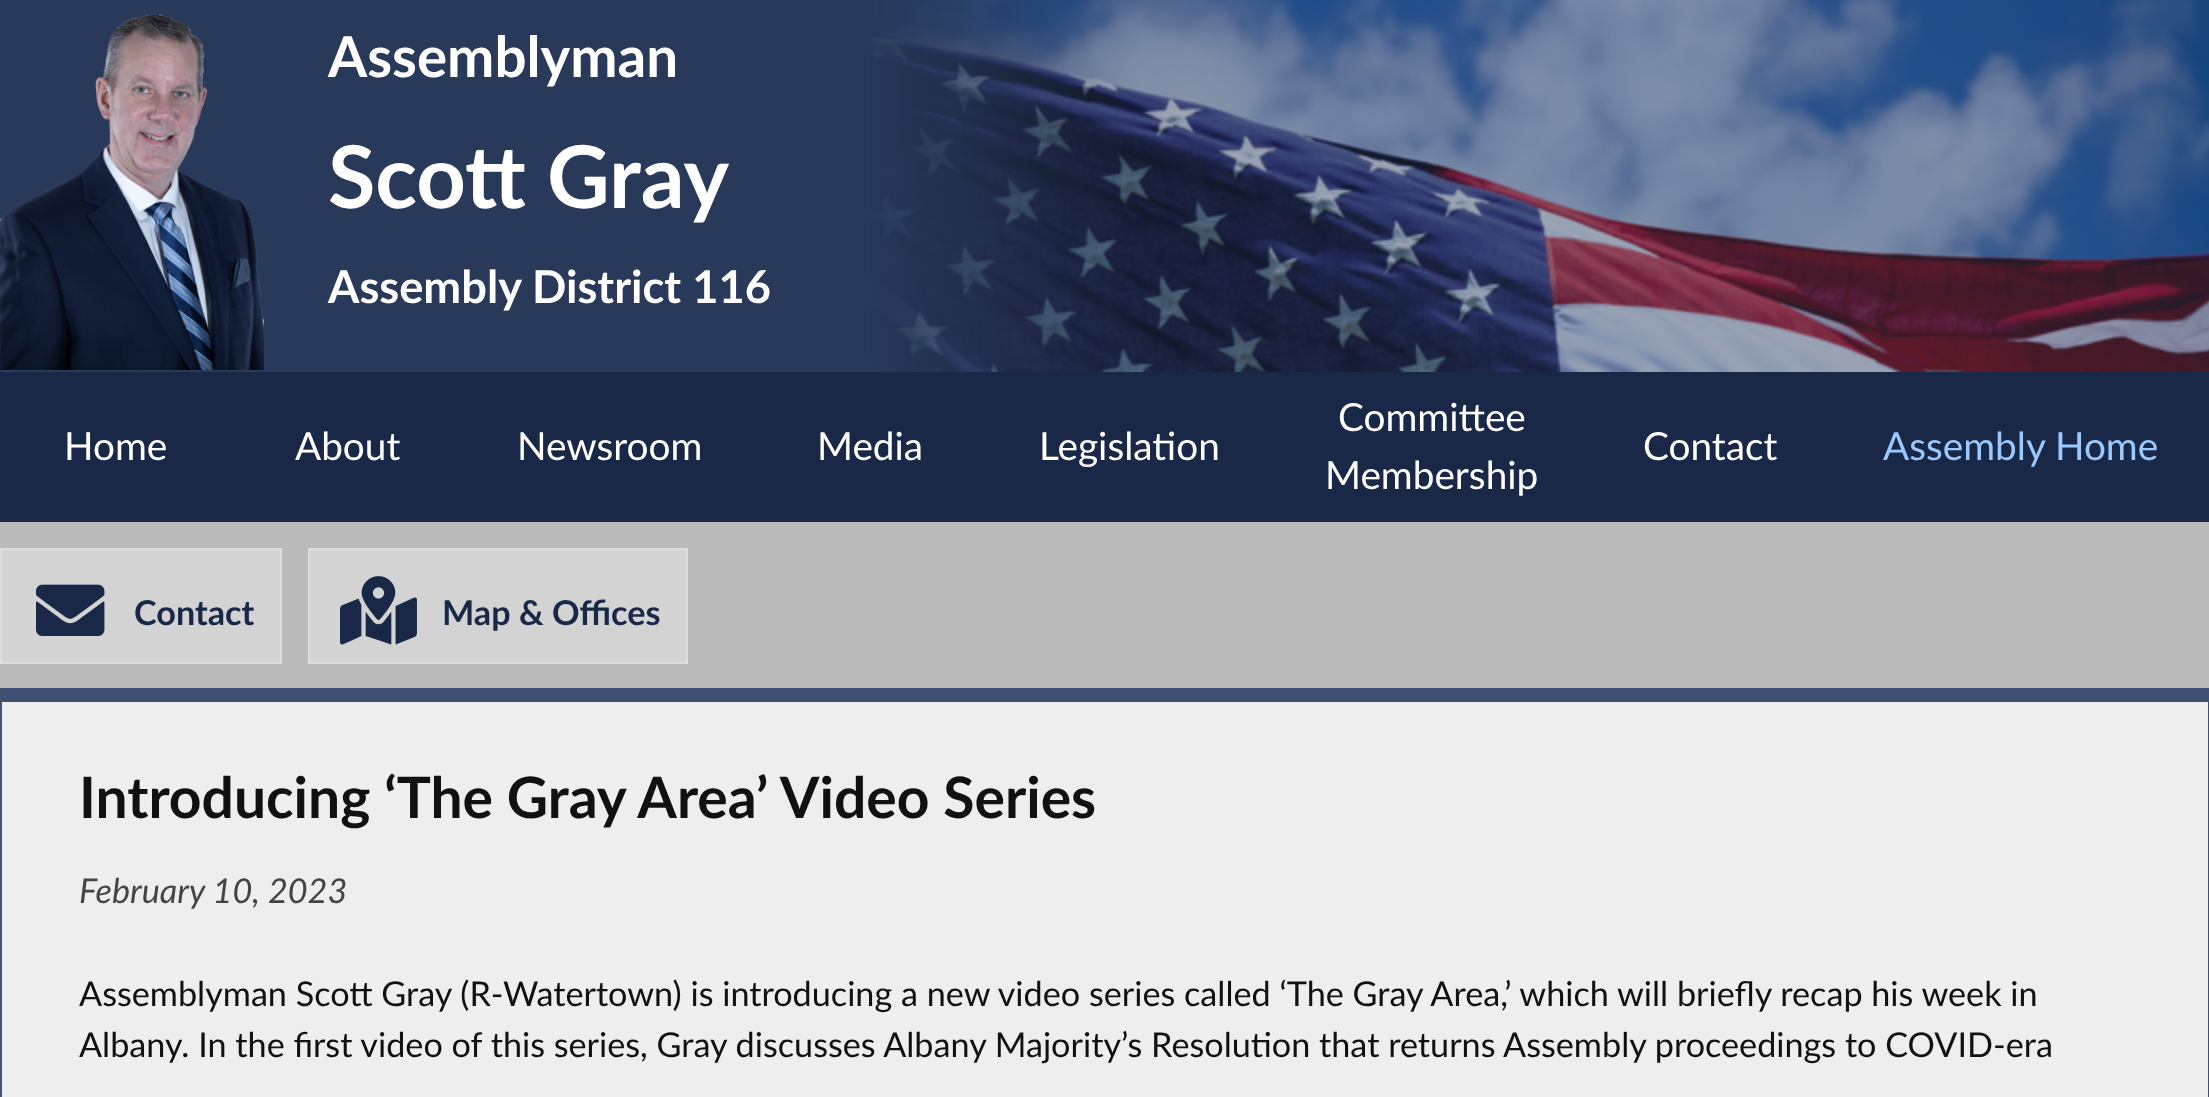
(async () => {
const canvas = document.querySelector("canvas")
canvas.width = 2209
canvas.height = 1097
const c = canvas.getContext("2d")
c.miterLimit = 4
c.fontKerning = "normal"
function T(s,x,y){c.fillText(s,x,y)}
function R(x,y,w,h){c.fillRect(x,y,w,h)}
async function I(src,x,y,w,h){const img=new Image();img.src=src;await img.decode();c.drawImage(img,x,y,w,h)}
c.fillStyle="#bbb"
R(0,0,2209,1097)
c.fillStyle="#29395a"
R(0,0,2209,372)
await I("1.png",871,0,1338,372)
await I("2.png",0,13,264,357)
c.font="bold 56.5px Lato"
c.fillStyle="#fff"
T("Assemblyman",328,77)
c.font="bold 86.5px Lato"
T("Scott Gray",328,208)
c.font="bold 45.25px Lato"
T("Assembly District 116",328,303)
c.fillStyle="#192847"
R(0,372,2209,150)
c.font="38.75px Lato"
c.fillStyle="#fff"
T("Home",64,460)
T("About",295,460)
T("Newsroom",517,460)
T("Media",817,460)
T("Legislation",1039,460)
T("Committee",1338,431)
T("Membership",1325,489)
T("Contact",1643,460)
c.fillStyle="#9bc9ff"
T("Assembly Home",1883,460)
c.fillStyle="#d3d3d3"
c.beginPath()
c.rect(1,549,280,114)
c.fill()
c.strokeStyle="#ddd"
c.lineWidth=2
c.stroke()
await I("3.png",36,584,69,52)
c.font="bold 34.2px Lato"
c.fillStyle="#192847"
T("Contact",134,625)
c.fillStyle="#d3d3d3"
c.beginPath()
c.rect(309,549,378,114)
c.fill()
c.stroke()
await I("4.png",340,576,77,69)
c.fillStyle="#192847"
T("Map & Offices",442,625)
c.fillStyle="#eee"
R(2,702,2206,395)
c.fillStyle="#405175"
R(2,688,2206,14)
R(2208,688,1,409)
R(0,688,2,409)
c.font="bold 57px Lato"
c.fillStyle="#111"
T("Introducing ‘The Gray Area’ Video Series",79,818)
c.font="italic 34.2px Lato"
c.fillStyle="#444"
T("February 10, 2023",79,903)
c.font="34.2px Lato"
c.fillStyle="#111"
T("Assemblyman Scott Gray (R-Watertown) is introducing a new video series called ‘The Gray Area,’ which will briefly recap his week in",79,1006)
T("Albany. In the first video of this series, Gray discusses Albany Majority’s Resolution that returns Assembly proceedings to COVID-era",79,1057)
})()
